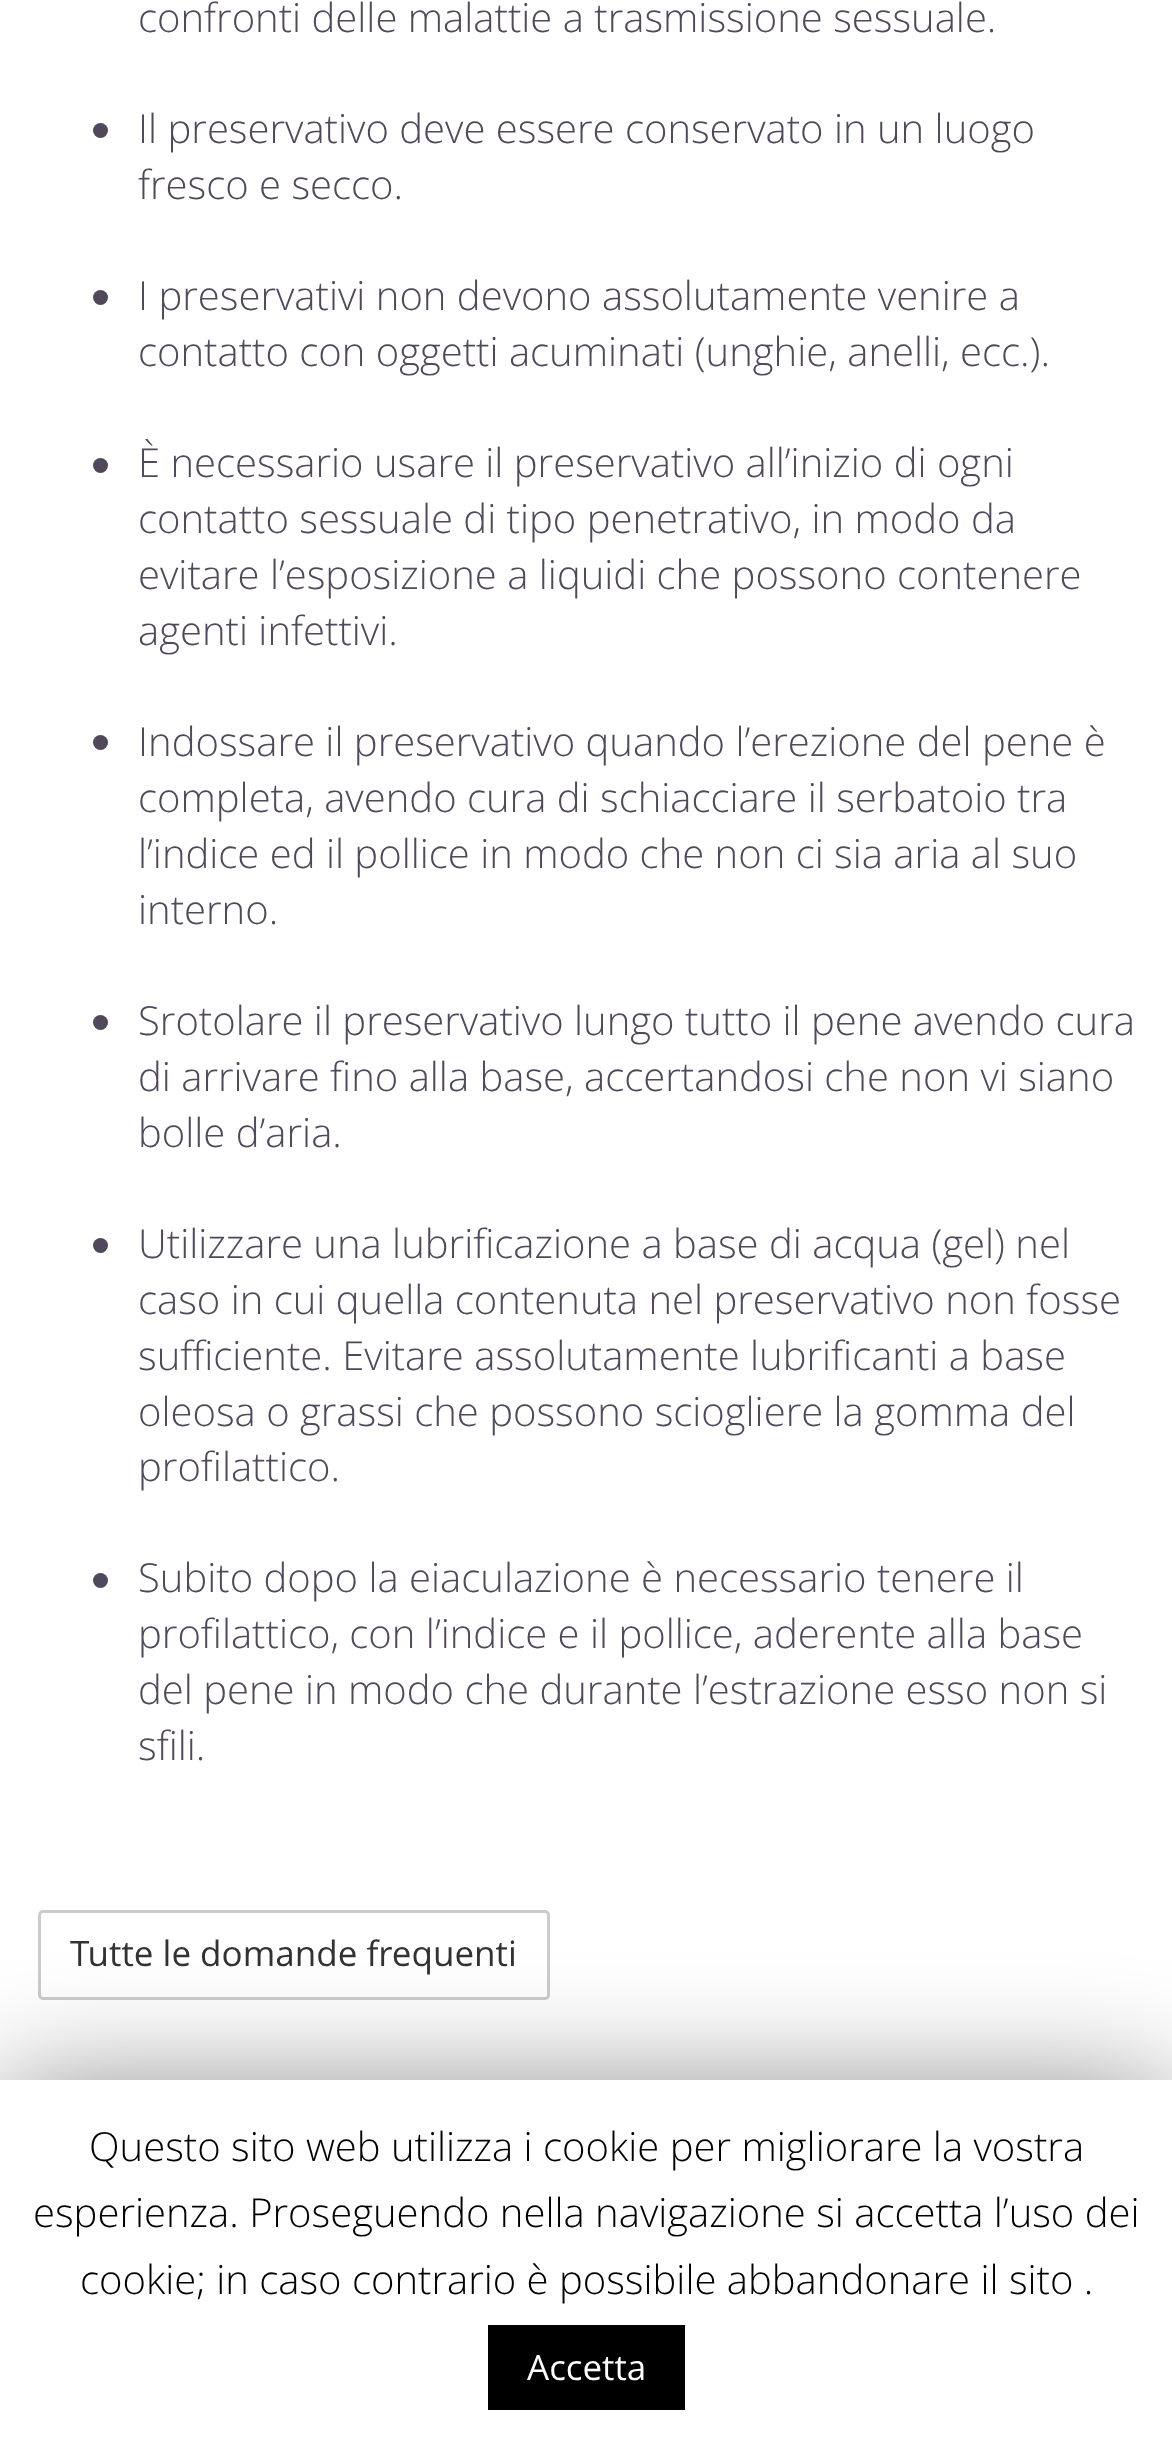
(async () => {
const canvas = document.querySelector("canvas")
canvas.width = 1172
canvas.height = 2442
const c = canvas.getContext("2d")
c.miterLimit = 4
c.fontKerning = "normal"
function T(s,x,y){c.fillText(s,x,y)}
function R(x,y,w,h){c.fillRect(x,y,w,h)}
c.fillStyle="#fff"
R(0,0,1172,2442)
c.font="300 40px Open Sans"
c.fillStyle="#50485b"
T("confronti delle malattie a trasmissione sessuale.",138,32)
c.beginPath()
c.arc(100.5,130.5,7.5,0,7)
c.fill()
T("Il preservativo deve essere conservato in un luogo",138,143)
T("fresco e secco.",138,199)
c.beginPath()
c.arc(100.5,297.5,7.5,0,7)
c.fill()
T("I preservativi non devono assolutamente venire a",138,310)
T("contatto con oggetti acuminati (unghie, anelli, ecc.).",138,366)
c.beginPath()
c.arc(100.5,465.5,7.5,0,7)
c.fill()
T("È necessario usare il preservativo all’inizio di ogni",138,477)
T("contatto sessuale di tipo penetrativo, in modo da",138,533)
T("evitare l’esposizione a liquidi che possono contenere",138,589)
T("agenti infettivi.",138,645)
c.beginPath()
c.arc(100.5,742.5,7.5,0,7)
c.fill()
T("Indossare il preservativo quando l’erezione del pene è",138,756)
T("completa, avendo cura di schiacciare il serbatoio tra",138,812)
T("l’indice ed il pollice in modo che non ci sia aria al suo",138,868)
T("interno.",138,924)
c.beginPath()
c.arc(100.5,1022.5,7.5,0,7)
c.fill()
T("Srotolare il preservativo lungo tutto il pene avendo cura",138,1035)
T("di arrivare fino alla base, accertandosi che non vi siano",138,1091)
T("bolle d’aria.",138,1147)
c.beginPath()
c.arc(100.5,1245.5,7.5,0,7)
c.fill()
T("Utilizzare una lubrificazione a base di acqua (gel) nel",138,1258)
T("caso in cui quella contenuta nel preservativo non fosse",138,1314)
T("sufficiente. Evitare assolutamente lubrificanti a base",138,1370)
T("oleosa o grassi che possono sciogliere la gomma del",138,1426)
T("profilattico.",138,1481)
c.beginPath()
c.arc(100.5,1580.5,7.5,0,7)
c.fill()
T("Subito dopo la eiaculazione è necessario tenere il",138,1592)
T("profilattico, con l’indice e il pollice, aderente alla base",138,1648)
T("del pene in modo che durante l’estrazione esso non si",138,1704)
T("sfili.",138,1760)
c.beginPath()
c.roundRect(39.5,1911.5,509,87,3.5)
c.strokeStyle="#ccc"
c.lineWidth=3
c.stroke()
c.font="35px Open Sans"
c.fillStyle="#333"
T("Tutte le domande frequenti",70,1966)
c.fillStyle="#00000080"
c.filter="blur(62.5px)"
c.beginPath()
c.rect(0,2093,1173,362)
c.fill()
c.filter="none"
c.fillStyle="#fff"
R(0,2080,1172,362)
c.font="300 40px Open Sans"
c.fillStyle="#000"
T("Questo sito web utilizza i cookie per migliorare la vostra",89,2161)
T("esperienza. Proseguendo nella navigazione si accetta l’uso dei",33,2227)
T("cookie; in caso contrario è possibile abbandonare il sito .",80,2294)
R(488,2325,197,85)
c.font="35px Open Sans"
c.fillStyle="#fff"
T("Accetta",527,2380)
})()
